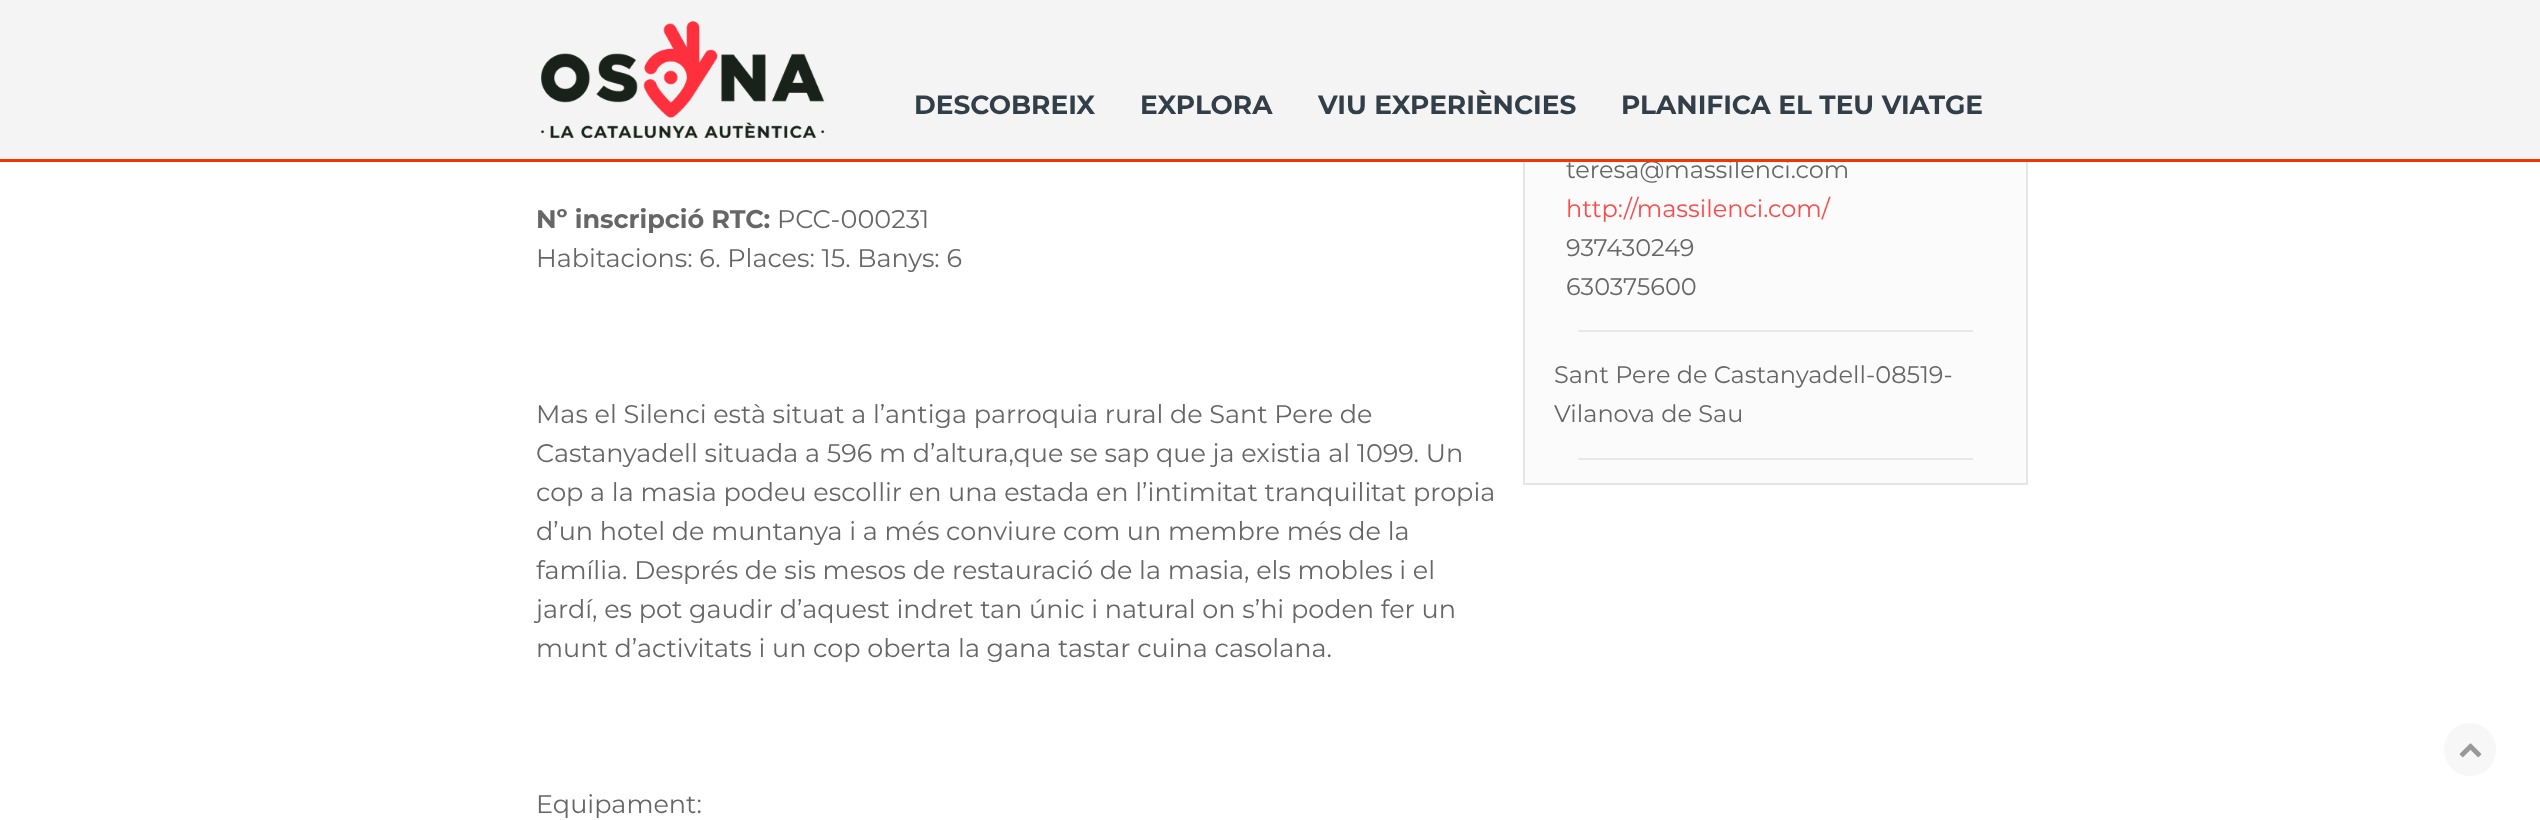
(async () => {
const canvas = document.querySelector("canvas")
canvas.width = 2540
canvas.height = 820
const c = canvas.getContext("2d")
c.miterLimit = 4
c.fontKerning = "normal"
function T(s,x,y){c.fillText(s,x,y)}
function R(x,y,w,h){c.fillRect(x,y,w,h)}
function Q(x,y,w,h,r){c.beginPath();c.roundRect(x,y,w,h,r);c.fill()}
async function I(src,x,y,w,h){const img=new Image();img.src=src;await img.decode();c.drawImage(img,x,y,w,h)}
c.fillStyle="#fff"
R(0,0,2540,820)
c.fillStyle="#fbfbfb"
R(1525,162,501,321)
c.strokeStyle="#e5e5e5"
c.lineWidth=2
c.strokeRect(1524,39,503,445)
c.fillStyle="#f4f4f4"
R(0,0,2540,159)
c.font="24px Montserrat"
c.fillStyle="#666"
T("teresa@massilenci.com",1566,178)
c.fillStyle="#f43500"
R(0,159,2540,3)
await I("1.png",541,21,284,117)
c.font="bold 26.4px Montserrat"
c.fillStyle="#333f48"
T("DESCOBREIX",914,114)
T("EXPLORA",1140,114)
T("VIU EXPERIÈNCIES",1318,114)
T("PLANIFICA EL TEU VIATGE",1621,114)
c.font="bold 25.5px Montserrat"
c.fillStyle="#666"
T("Nº inscripció RTC:",536,228)
c.font="25.5px Montserrat"
T("PCC-000231",777,228)
T("Habitacions: 6. Places: 15. Banys: 6",536,267)
T("Mas el Silenci està situat a l’antiga parroquia rural de Sant Pere de",536,423)
T("Castanyadell situada a 596 m d’altura,que se sap que ja existia al 1099. Un",536,462)
T("cop a la masia podeu escollir en una estada en l’intimitat tranquilitat propia",536,501)
T("d’un hotel de muntanya i a més conviure com un membre més de la",536,540)
T("família. Després de sis mesos de restauració de la masia, els mobles i el",536,579)
T("jardí, es pot gaudir d’aquest indret tan únic i natural on s’hi poden fer un",536,618)
T("munt d’activitats i un cop oberta la gana tastar cuina casolana.",536,657)
T("Equipament:",536,813)
c.font="24px Montserrat"
c.fillStyle="#fc4949"
T("http://massilenci.com/",1566,217)
c.fillStyle="#666"
T("937430249",1566,256)
T("630375600",1566,295)
c.fillStyle="#e8e8e8"
R(1578,330,395,2)
c.fillStyle="#666"
T("Sant Pere de Castanyadell-08519-",1554,383)
T("Vilanova de Sau",1554,422)
c.fillStyle="#e8e8e8"
R(1578,458,395,2)
c.fillStyle="#f7f7f7"
Q(2444,723,52,53,26)
await I("2.png",2459,743,23,15)
})()
